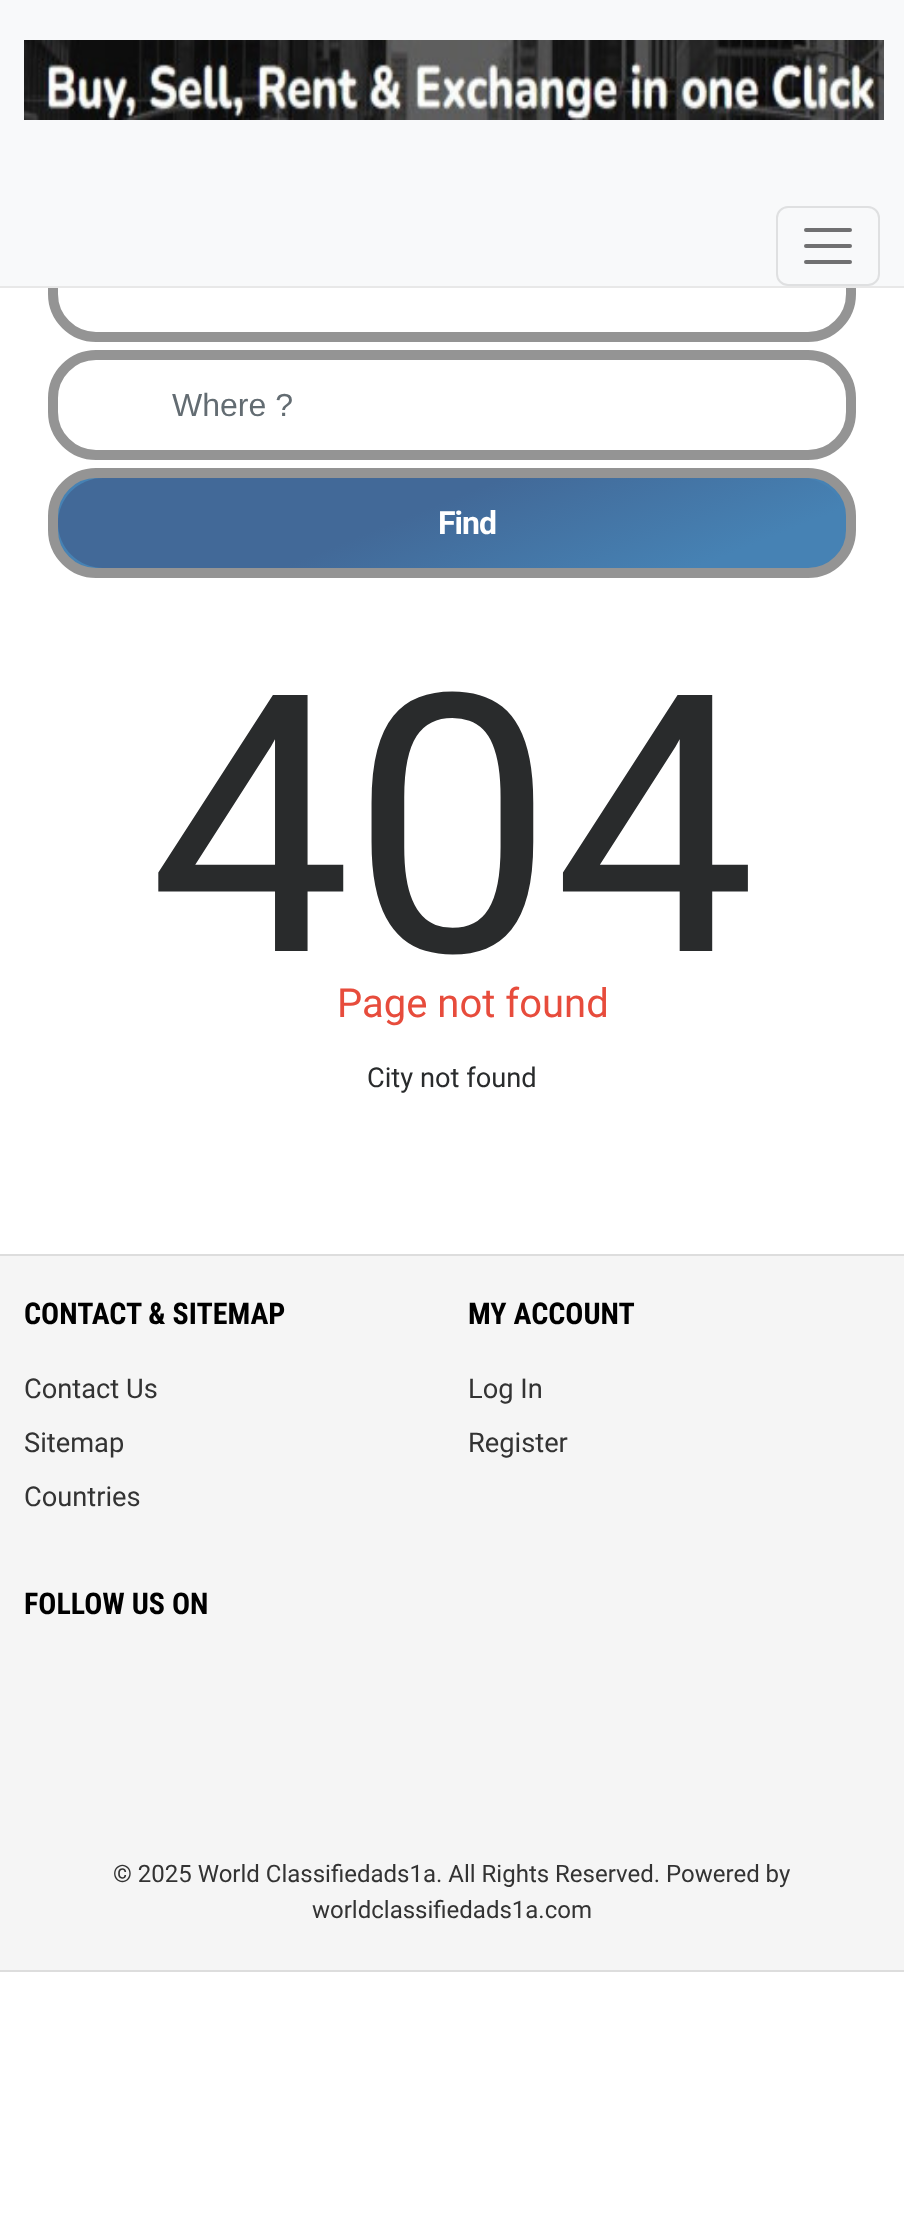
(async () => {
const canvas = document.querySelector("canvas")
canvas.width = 904
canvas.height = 2223
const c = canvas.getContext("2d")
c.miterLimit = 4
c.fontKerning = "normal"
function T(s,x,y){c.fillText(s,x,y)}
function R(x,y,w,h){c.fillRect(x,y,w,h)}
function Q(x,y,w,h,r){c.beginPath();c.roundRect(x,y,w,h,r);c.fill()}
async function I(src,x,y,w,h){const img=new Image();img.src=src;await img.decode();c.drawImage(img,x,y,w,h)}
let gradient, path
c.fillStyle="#fff"
R(0,0,904,2223)
c.beginPath()
c.roundRect(53,237,798,100,43)
c.strokeStyle="#949494"
c.lineWidth=10
c.stroke()
c.fillStyle="#f8f9fa"
R(0,0,904,286)
c.fillStyle="#e8e8e8"
R(0,286,904,2)
await I("1.png",24,40,860,80)
c.beginPath()
c.roundRect(777,207,102,78,11)
c.strokeStyle="#dfe0e1"
c.lineWidth=2
c.stroke()
path = new Path2D("M806 230h44m-44 16h44m-44 16h44")
c.strokeStyle="#707071"
c.lineWidth=4
c.lineCap="round"
c.stroke(path)
c.beginPath()
c.roundRect(53,355,798,100,43)
c.strokeStyle="#949494"
c.lineWidth=10
c.stroke()
c.font="32px Liberation Sans"
c.fillStyle="#636c72"
T("Where ?",172,416)
c.fillStyle="#4682b4"
c.beginPath()
c.roundRect(53,473,798,100,43)
c.fill()
c.stroke()
gradient = c.createLinearGradient(381,347,523,699)
gradient.addColorStop(.44,"#426998")
gradient.addColorStop(.85,"#4682b4")
c.fillStyle = gradient
Q(58,478,788,90,45)
c.letterSpacing="-1px"
c.font="bold 32px Roboto"
c.fillStyle="#fff"
T("Find",438,534)
c.letterSpacing="0px"
c.font="360px Roboto"
c.fillStyle="#292b2c"
T("404",149,951)
c.font="40px Roboto"
c.fillStyle="#e74c3c"
T("Page not found",337,1017)
c.font="27.25px Roboto"
c.fillStyle="#292b2c"
T("City not found",367,1087)
c.fillStyle="#f5f5f5"
R(0,1256,904,714)
c.fillStyle="#ddd"
R(0,1254,904,2)
R(0,1970,904,2)
c.font="bold 30px Roboto Condensed"
c.fillStyle="#000"
T("CONTACT & SITEMAP",24,1324)
c.font="27.25px Roboto"
c.fillStyle="#333"
T("Contact Us",24,1398)
T("Sitemap",24,1452)
T("Countries",24,1506)
c.font="bold 30px Roboto Condensed"
c.fillStyle="#000"
T("MY ACCOUNT",468,1324)
c.font="27.25px Roboto"
c.fillStyle="#333"
T("Log In",468,1398)
T("Register",468,1452)
c.font="bold 30px Roboto Condensed"
c.fillStyle="#000"
T("FOLLOW US ON",24,1614)
c.font="24px Roboto"
c.fillStyle="#333"
T("© 2025 World Classifiedads1a. All Rights Reserved. Powered by",113,1882)
T("worldclassifiedads1a.com",312,1918)
})()
